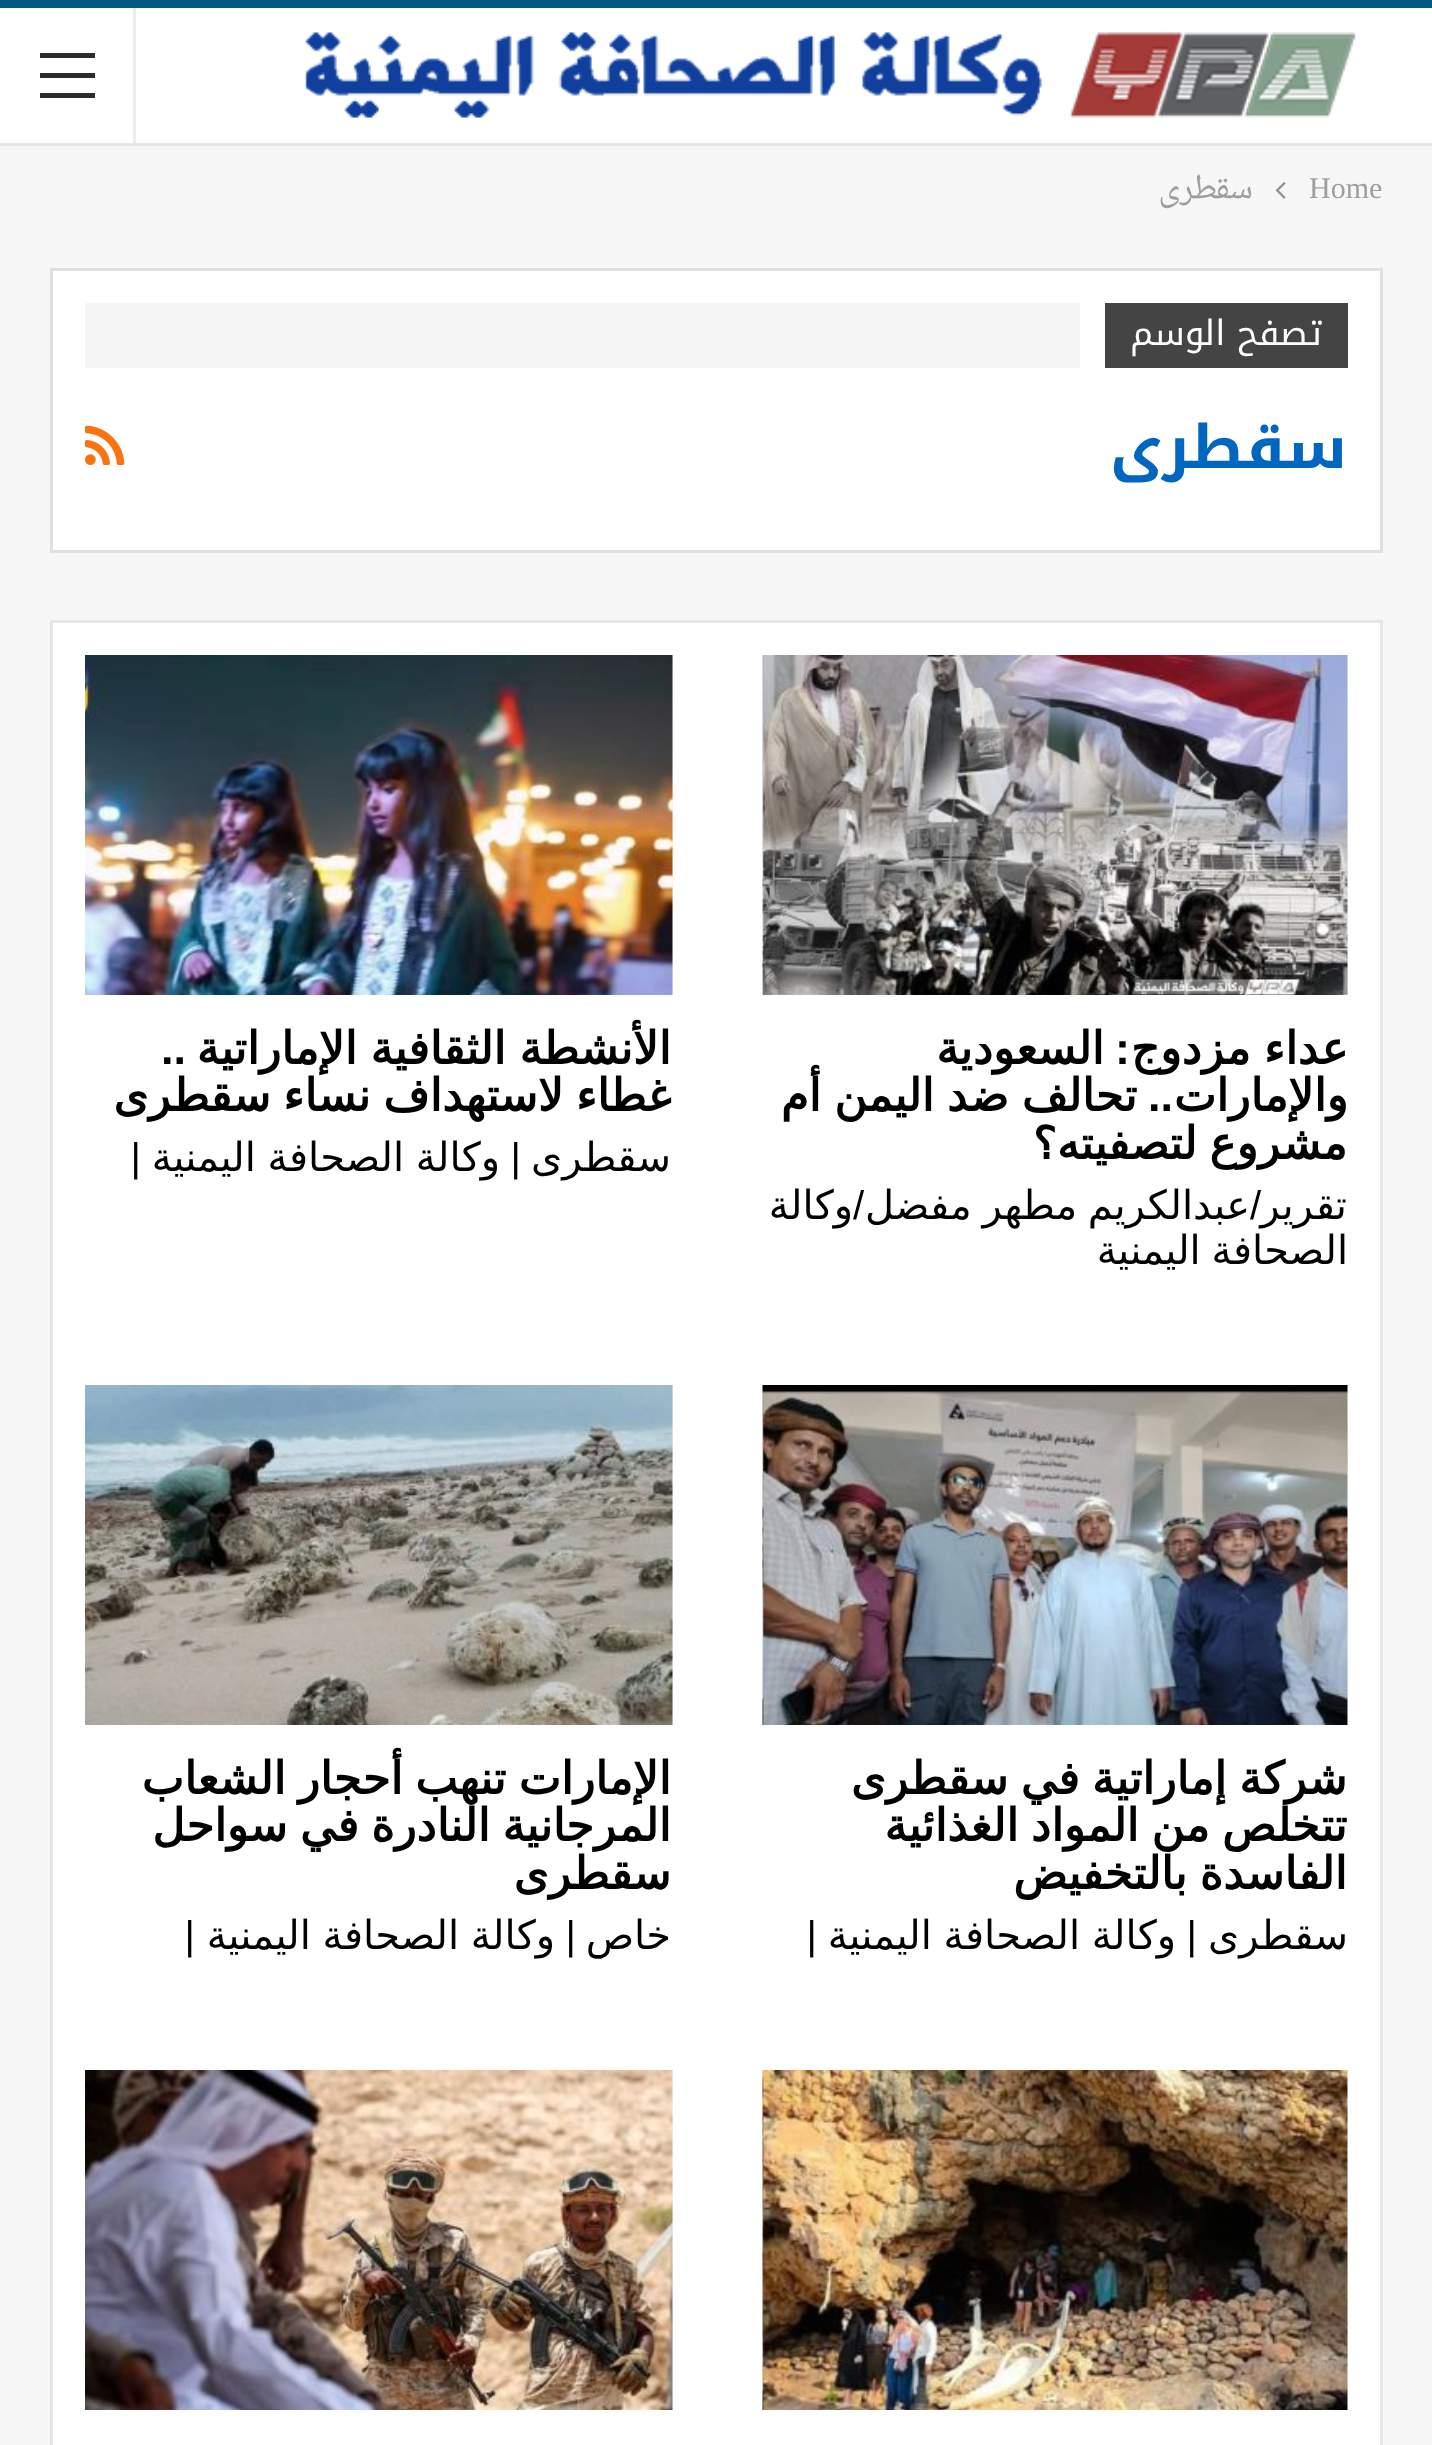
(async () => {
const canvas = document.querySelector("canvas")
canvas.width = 1432
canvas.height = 2445
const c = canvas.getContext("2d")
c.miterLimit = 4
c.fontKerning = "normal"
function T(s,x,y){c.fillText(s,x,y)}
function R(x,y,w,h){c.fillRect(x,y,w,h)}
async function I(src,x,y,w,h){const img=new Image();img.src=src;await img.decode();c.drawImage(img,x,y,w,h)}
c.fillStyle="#005a84"
R(0,0,1432,2445)
c.fillStyle="#f7f7f7"
R(0,146,1432,2299)
c.fillStyle="#fff"
R(0,8,1432,135)
c.fillStyle="#e5e5e5"
R(0,143,1432,3)
await I("1.png",305,32,1051,86)
c.fillStyle="#ededed"
R(133,8,3,135)
c.fillStyle="#2c2c2c"
R(40,73,55,5)
R(40,53,55,5)
R(40,93,55,5)
c.font="30px Liberation Serif"
c.fillStyle="#9e9e9e"
T("Home",1309,198)
await I("2.png",1275,182,11,17)
c.direction="rtl"
c.font="30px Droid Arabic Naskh"
T("سقطرى",1253,198)
c.fillStyle="#fff"
c.beginPath()
c.rect(51.5,269.5,1330,282)
c.fill()
c.strokeStyle="#e0e0e0"
c.lineWidth=3
c.stroke()
c.fillStyle="#444"
R(1105,303,243,65)
c.font="35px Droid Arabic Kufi"
c.fillStyle="#fff"
T("تصفح الوسم",1322,345)
c.fillStyle="#f5f5f5"
R(85,303,995,65)
c.font="bold 60px Droid Arabic Kufi"
c.fillStyle="#0066bf"
T("سقطرى",1347,468)
await I("3.png",85,425,40,40)
c.fillStyle="#fff"
c.beginPath()
c.rect(51.5,621.5,1330,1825)
c.fill()
c.strokeStyle="#e6e6e6"
c.stroke()
c.fillStyle="#f5f5f5"
R(1347,655,1,340)
await I("4.png",762,655,586,340)
c.wordSpacing="-1px"
c.font="bold 45px DejaVu Sans"
c.fillStyle="#000"
T("عداء مزدوج",1348,1064)
c.wordSpacing="0px"
c.font="bold 45px Liberation Sans"
T(":",1130,1064)
c.font="bold 45px DejaVu Sans"
T("السعودية",1104,1064)
T("والإمارات",1348,1111)
c.font="bold 45px Liberation Sans"
T("..",1173,1111)
c.wordSpacing="-1.5px"
c.font="bold 45px DejaVu Sans"
T("تحالف ضد اليمن أم",1137,1111)
c.wordSpacing="-2px"
T("مشروع لتصفيته؟",1347,1159)
c.wordSpacing="0px"
c.font="40px Liberation Sans"
T("/",1261,1219)
c.font="40px DejaVu Sans"
T("تقرير",1347,1219)
c.wordSpacing="-2px"
T("عبدالكريم مطهر مفضل",1250,1219)
c.wordSpacing="0px"
c.font="40px Liberation Sans"
T("/",864,1219)
c.font="40px DejaVu Sans"
T("وكالة",853,1219)
c.wordSpacing="-2px"
T("الصحافة اليمنية",1348,1264)
c.fillStyle="#f5f5f5"
R(672,655,1,340)
await I("5.png",85,655,588,340)
c.wordSpacing="-1px"
c.font="bold 45px DejaVu Sans"
c.fillStyle="#000"
T("الأنشطة الثقافية الإماراتية",671,1064)
c.wordSpacing="0px"
c.font="bold 45px Liberation Sans"
T("..",186,1064)
c.wordSpacing="-2px"
c.font="bold 45px DejaVu Sans"
T("غطاء لاستهداف نساء سقطرى",671,1111)
c.wordSpacing="0px"
c.font="40px DejaVu Sans"
T("سقطرى",671,1171)
c.font="40px Liberation Sans"
T("|",521,1171)
c.wordSpacing="-1px"
c.font="40px DejaVu Sans"
T("وكالة الصحافة اليمنية",500,1171)
c.wordSpacing="0px"
c.font="40px Liberation Sans"
T("|",141,1171)
c.fillStyle="#f5f5f5"
R(1347,1385,1,340)
await I("6.png",762,1385,586,340)
c.wordSpacing="-2px"
c.font="bold 45px DejaVu Sans"
c.fillStyle="#000"
T("شركة إماراتية في سقطرى",1347,1794)
T("تتخلص من المواد الغذائية",1347,1841)
T("الفاسدة بالتخفيض",1347,1889)
c.wordSpacing="0px"
c.font="40px DejaVu Sans"
T("سقطرى",1348,1949)
c.font="40px Liberation Sans"
T("|",1197,1949)
c.wordSpacing="-1px"
c.font="40px DejaVu Sans"
T("وكالة الصحافة اليمنية",1176,1949)
c.wordSpacing="0px"
c.font="40px Liberation Sans"
T("|",817,1949)
c.fillStyle="#f5f5f5"
R(672,1385,1,340)
await I("7.png",85,1385,588,340)
c.wordSpacing="-2px"
c.font="bold 45px DejaVu Sans"
c.fillStyle="#000"
T("الإمارات تنهب أحجار الشعاب",671,1794)
T("المرجانية النادرة في سواحل",671,1841)
c.wordSpacing="0px"
T("سقطرى",671,1889)
c.font="40px DejaVu Sans"
T("خاص",671,1949)
c.font="40px Liberation Sans"
T("|",576,1949)
c.wordSpacing="-1px"
c.font="40px DejaVu Sans"
T("وكالة الصحافة اليمنية",555,1949)
c.wordSpacing="0px"
c.font="40px Liberation Sans"
T("|",195,1949)
c.fillStyle="#f5f5f5"
R(1347,2070,1,340)
await I("8.png",762,2070,586,340)
R(672,2070,1,340)
await I("9.png",85,2070,588,340)
})()
